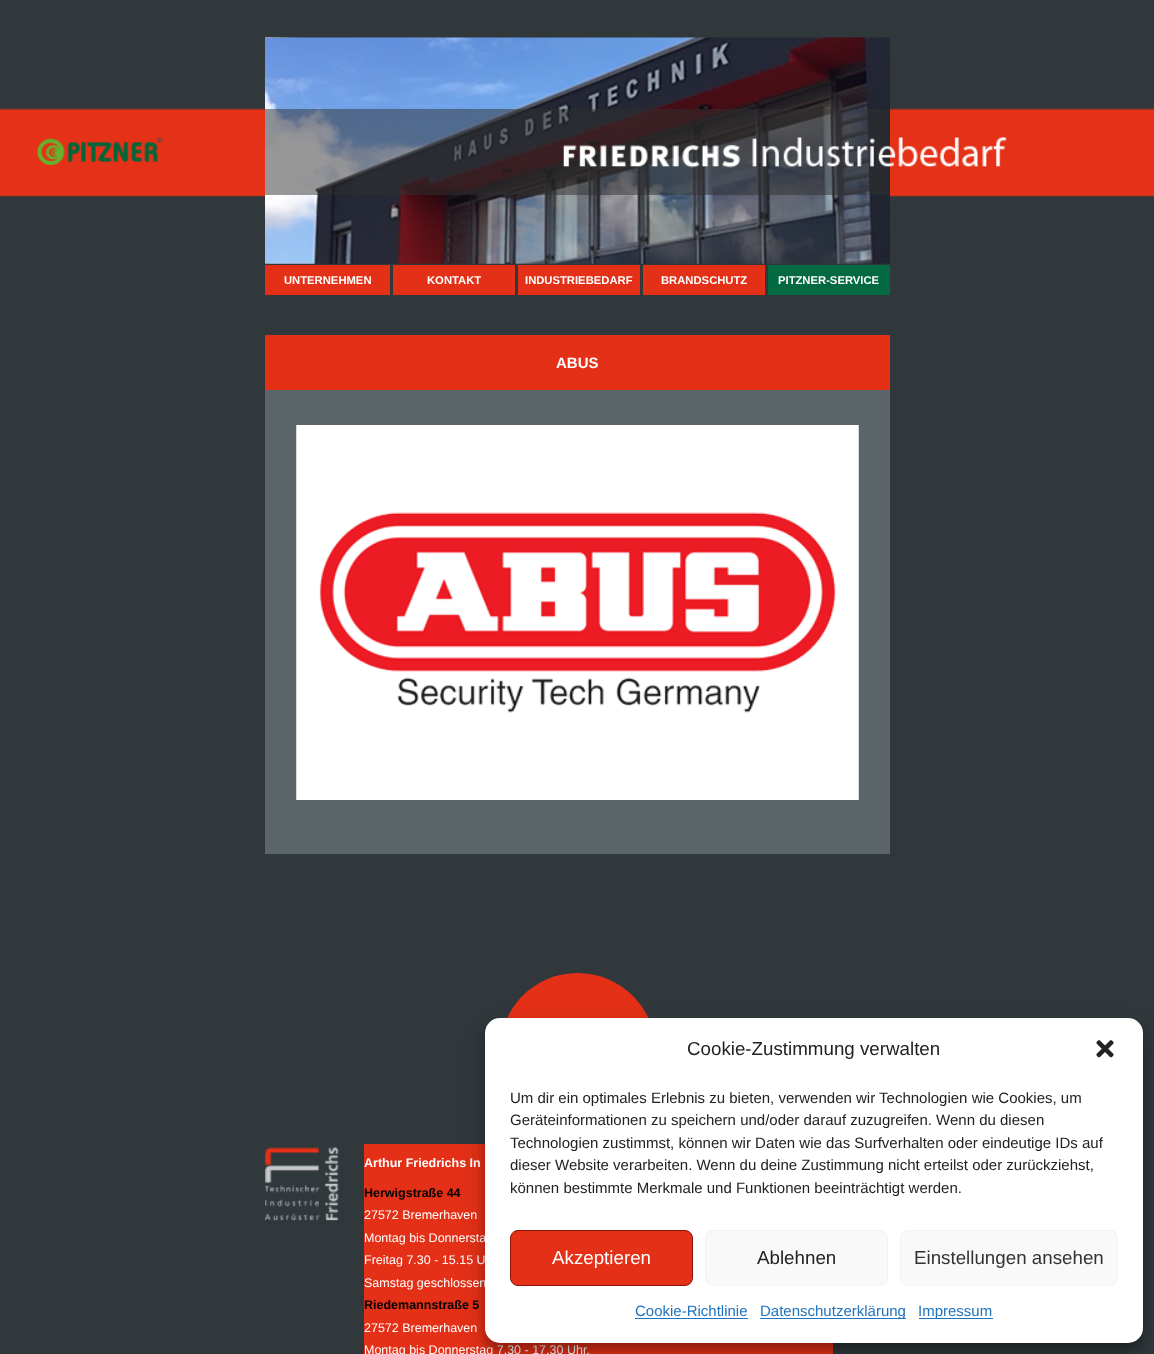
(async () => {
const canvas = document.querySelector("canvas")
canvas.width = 1154
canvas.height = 1354
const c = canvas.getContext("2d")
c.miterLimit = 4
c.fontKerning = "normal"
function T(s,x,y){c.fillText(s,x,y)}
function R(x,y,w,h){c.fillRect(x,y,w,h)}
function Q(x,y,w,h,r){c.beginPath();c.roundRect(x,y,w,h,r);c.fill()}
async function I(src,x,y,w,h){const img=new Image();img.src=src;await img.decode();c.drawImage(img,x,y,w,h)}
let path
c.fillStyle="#30383c"
R(0,0,1154,1354)
await I("1.png",0,108,1154,92)
await I("2.png",37,137,126,28)
await I("3.png",265,37,625,227)
await I("4.png",563,137,444,31)
c.fillStyle="#e33017"
R(265,265,125,30)
c.font="bold 11.25px Liberation Sans"
c.fillStyle="#fff"
T("UNTERNEHMEN",284,284)
c.fillStyle="#e33017"
R(393,265,122,30)
c.fillStyle="#fff"
T("KONTAKT",427,284)
c.fillStyle="#e33017"
R(518,265,122,30)
c.fillStyle="#fff"
T("INDUSTRIEBEDARF",525,284)
c.fillStyle="#e33017"
R(643,265,122,30)
c.fillStyle="#fff"
T("BRANDSCHUTZ",661,284)
c.fillStyle="#026941"
R(768,265,122,30)
c.fillStyle="#fff"
T("PITZNER-SERVICE",778,284)
c.fillStyle="#5c6569"
R(265,390,625,464)
c.fillStyle="#e33017"
R(265,335,625,55)
c.font="bold 15px Liberation Sans"
c.fillStyle="#fff"
T("ABUS",556,368)
await I("5.png",296,425,563,375)
c.fillStyle="#e33017"
Q(499,973,157,158,78.5)
c.fillStyle="#30383c"
path = new Path2D("M578 972c43 0 78 36 78 80c0 44-35 79-78 79c-44 0-79-35-79-79c0-44 35-80 79-80zm0 0c43 0 78 36 78 80c0 42-35 77-78 77c-43 0-78-35-78-77c0-44 35-80 78-80z")
c.fill(path,"evenodd")
await I("6.png",265,1147,74,74)
c.fillStyle="#e33017"
R(364,1144,469,210)
c.font="bold 12.5px Liberation Sans"
c.fillStyle="#fff"
T("Arthur Friedrichs In",364,1167)
c.fillStyle="#000"
T("Herwigstraße 44",364,1197)
c.font="12.5px Liberation Sans"
c.fillStyle="#fff"
T("27572 Bremerhaven",364,1219)
T("Montag bis Donnersta",364,1242)
T("Freitag 7.30 - 15.15 U",364,1264)
T("Samstag geschlossen",364,1287)
c.font="bold 12.5px Liberation Sans"
c.fillStyle="#000"
T("Riedemannstraße 5",364,1309)
c.font="12.5px Liberation Sans"
c.fillStyle="#fff"
T("27572 Bremerhaven",364,1332)
T("Montag bis Donnerstag 7.30 - 17.30 Uhr,",364,1354)
c.fillStyle="#0000003b"
c.filter="blur(4px)"
c.beginPath()
c.roundRect(485,1025,658,325,15)
c.fill()
c.filter="none"
c.fillStyle="#00000030"
c.filter="blur(12.5px)"
c.beginPath()
c.roundRect(485,1030,658,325,15)
c.fill()
c.filter="none"
c.fillStyle="#fff"
Q(485,1018,658,325,15)
c.font="18.75px Liberation Sans"
c.fillStyle="#222"
T("Cookie-Zustimmung verwalten",687,1055)
await I("7.png",1096,1040,18,18)
c.font="15px Liberation Sans"
T("Um dir ein optimales Erlebnis zu bieten, verwenden wir Technologien wie Cookies, um",510,1103)
T("Geräteinformationen zu speichern und/oder darauf zuzugreifen. Wenn du diesen",510,1125)
T("Technologien zustimmst, können wir Daten wie das Surfverhalten oder eindeutige IDs auf",510,1148)
T("dieser Website verarbeiten. Wenn du deine Zustimmung nicht erteilst oder zurückziehst,",510,1170)
T("können bestimmte Merkmale und Funktionen beeinträchtigt werden.",510,1193)
c.fillStyle="#e33017"
c.beginPath()
c.roundRect(510.5,1230.5,182,55,7.5)
c.fill()
c.strokeStyle="#891508"
c.stroke()
c.font="18.75px Liberation Sans"
c.fillStyle="#fff"
T("Akzeptieren",552,1264)
c.fillStyle="#f9f9f9"
c.beginPath()
c.roundRect(705.5,1230.5,182,55,7.5)
c.fill()
c.strokeStyle="#f2f2f2"
c.stroke()
c.fillStyle="#222"
T("Ablehnen",757,1264)
c.fillStyle="#f9f9f9"
c.beginPath()
c.roundRect(900.5,1230.5,217,55,7.5)
c.fill()
c.stroke()
c.fillStyle="#333"
T("Einstellungen ansehen",914,1264)
c.font="15px Liberation Sans"
c.fillStyle="#1e73be"
T("Cookie-Richtlinie",635,1316)
R(635,1318,113,1)
R(760,1318,146,1)
T("Datenschutzerklärung",760,1316)
R(919,1318,74,1)
T("Impressum",918,1316)
})()
